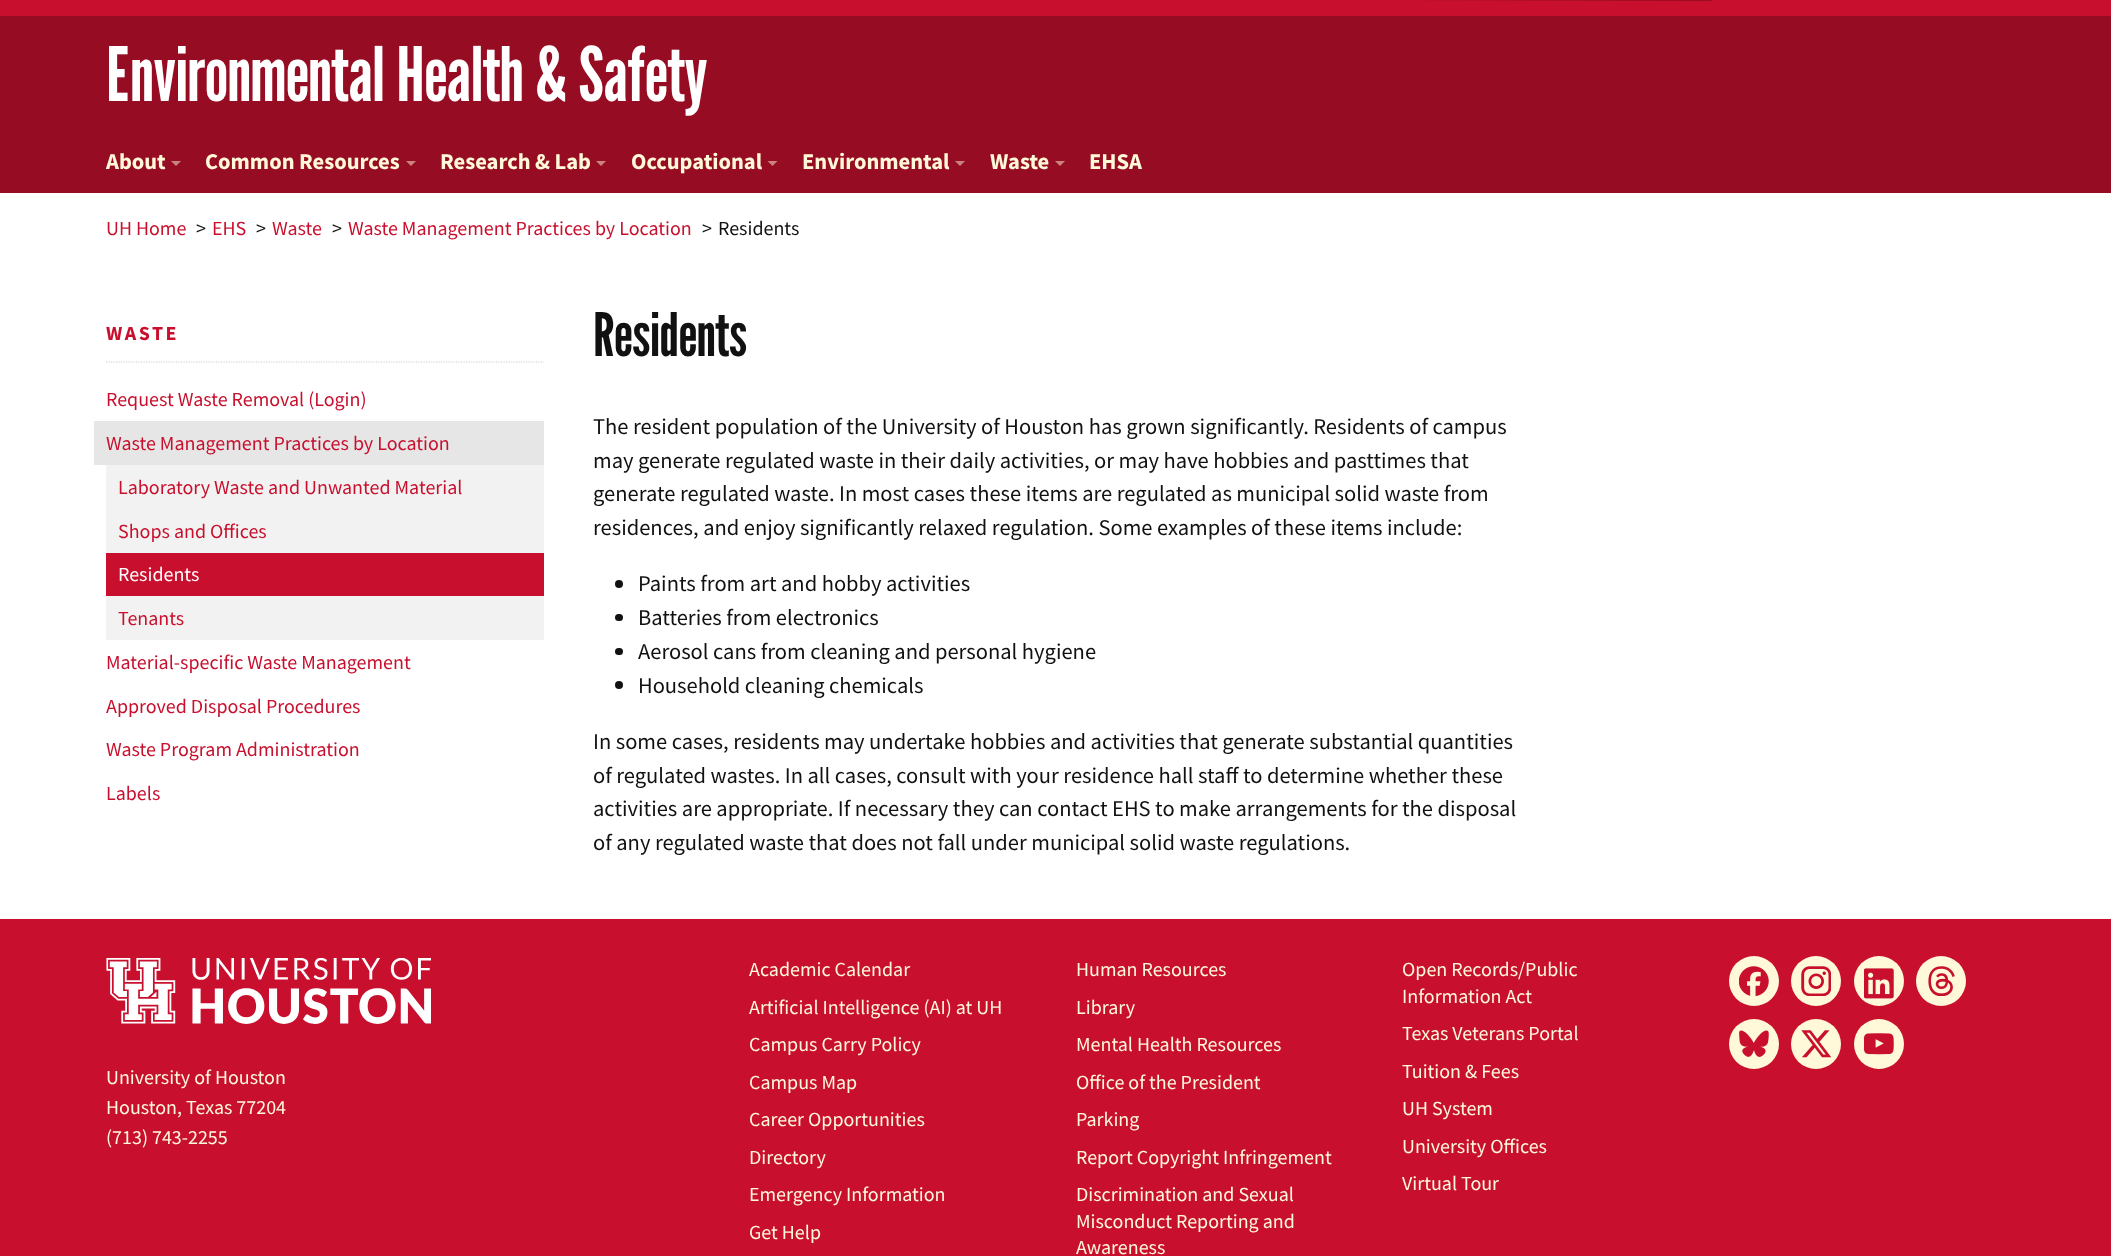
(async () => {
const canvas = document.querySelector("canvas")
canvas.width = 2111
canvas.height = 1256
const c = canvas.getContext("2d")
c.miterLimit = 4
c.fontKerning = "normal"
function T(s,x,y){c.fillText(s,x,y)}
function R(x,y,w,h){c.fillRect(x,y,w,h)}
function Q(x,y,w,h,r){c.beginPath();c.roundRect(x,y,w,h,r);c.fill()}
async function I(src,x,y,w,h){const img=new Image();img.src=src;await img.decode();c.drawImage(img,x,y,w,h)}
let gradient, path
c.fillStyle="#fff"
R(0,0,2111,1256)
c.fillStyle="#c8102e"
R(0,0,2111,16)
gradient = c.createLinearGradient(1379,-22,1721,-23)
gradient.addColorStop(0,"#c8102e")
gradient.addColorStop(1,"#960c22")
c.fillStyle = gradient
Q(1379,-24,342,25,23.5)
c.fillStyle="#960c22"
R(0,16,2111,177)
c.font="75px League Gothic"
c.fillStyle="#fff"
T("Environmental Health & Safety",106,101)
c.font="bold 22.5px Source Sans Pro"
c.fillStyle="#fff9d9"
T("About",106,169)
c.fillStyle="#cb837e"
path = new Path2D("M171 161h10l-5 5z")
c.fill(path)
c.fillStyle="#fff9d9"
T("Common Resources",205,169)
c.fillStyle="#cb837e"
path = new Path2D("M406 161h10l-5 5z")
c.fill(path)
c.fillStyle="#fff9d9"
T("Research & Lab",440,169)
c.fillStyle="#cb837e"
path = new Path2D("M596 161h10l-5 5z")
c.fill(path)
c.fillStyle="#fff9d9"
T("Occupational",631,169)
c.fillStyle="#cb837e"
path = new Path2D("M767.5 161h10l-5 5z")
c.fill(path)
c.fillStyle="#fff9d9"
T("Environmental",802,169)
c.fillStyle="#cb837e"
path = new Path2D("M955 161h10l-5 5z")
c.fill(path)
c.fillStyle="#fff9d9"
T("Waste",990,169)
c.fillStyle="#cb837e"
path = new Path2D("M1055 161h10l-5 5z")
c.fill(path)
c.fillStyle="#fff9d9"
T("EHSA",1089,169)
c.font="20px Source Sans Pro"
c.fillStyle="#c8102e"
T("UH Home",106,235)
c.fillStyle="#111"
T(">",196,235)
c.fillStyle="#c8102e"
T("EHS",212,235)
c.fillStyle="#111"
T(">",256,235)
c.fillStyle="#c8102e"
T("Waste",272,235)
c.fillStyle="#111"
T(">",332,235)
c.fillStyle="#c8102e"
T("Waste Management Practices by Location",348,235)
c.fillStyle="#111"
T(">",702,235)
T("Residents",718,235)
path = new Path2D("M106 362h438")
c.strokeStyle="#ccc"
c.lineWidth=1.2
c.setLineDash([1.25,1.25])
c.stroke(path)
c.letterSpacing="2.5px"
c.font="bold 20px Source Sans Pro"
c.fillStyle="#c8102e"
T("WASTE",106,340)
c.letterSpacing="0px"
c.font="20px 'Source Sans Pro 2'"
T("Request Waste Removal (Login)",106,406)
c.fillStyle="#e6e6e6"
R(94,421,450,44)
c.fillStyle="#c8102e"
T("Waste Management Practices by Location",106,450)
c.fillStyle="#f2f2f2"
R(106,465,438,88)
c.fillStyle="#c8102e"
T("Laboratory Waste and Unwanted Material",118,494)
T("Shops and Offices",118,538)
R(106,553,438,43)
c.fillStyle="#fff"
T("Residents",118,581)
c.fillStyle="#f2f2f2"
R(106,596,438,44)
c.fillStyle="#c8102e"
T("Tenants",118,625)
T("Material-specific Waste Management",106,669)
T("Approved Disposal Procedures",106,713)
T("Waste Program Administration",106,756)
T("Labels",106,800)
c.font="60px League Gothic"
c.fillStyle="#111"
T("Residents",593,356)
c.font="22.5px 'Source Sans Pro 2'"
T("The resident population of the University of Houston has grown significantly. Residents of campus",593,434)
T("may generate regulated waste in their daily activities, or may have hobbies and pasttimes that",593,468)
T("generate regulated waste. In most cases these items are regulated as municipal solid waste from",593,501)
T("residences, and enjoy significantly relaxed regulation. Some examples of these items include:",593,535)
c.beginPath()
c.arc(619,584,4,0,7)
c.fill()
T("Paints from art and hobby activities",638,591)
Q(615,614,8,7,3.5)
T("Batteries from electronics",638,625)
Q(615,648,8,7,3.5)
T("Aerosol cans from cleaning and personal hygiene",638,659)
c.beginPath()
c.arc(619,685,4,0,7)
c.fill()
T("Household cleaning chemicals",638,693)
T("In some cases, residents may undertake hobbies and activities that generate substantial quantities",593,749)
T("of regulated wastes. In all cases, consult with your residence hall staff to determine whether these",593,783)
T("activities are appropriate. If necessary they can contact EHS to make arrangements for the disposal",593,816)
T("of any regulated waste that does not fall under municipal solid waste regulations.",593,850)
c.fillStyle="#c8102e"
R(0,919,2111,337)
await I("1.png",106,958,325,66)
c.font="20px 'Source Sans Pro 2'"
c.fillStyle="#fff9d9"
T("University of Houston",106,1084)
T("Houston, Texas 77204",106,1114)
T("(713) 743-2255",106,1144)
T("Academic Calendar",749,976)
T("Human Resources",1076,976)
T("Open Records/Public",1402,976)
T("Information Act",1402,1003)
T("Artificial Intelligence (AI) at UH",749,1014)
T("Library",1076,1014)
T("Texas Veterans Portal",1402,1040)
T("Campus Carry Policy",749,1051)
T("Mental Health Resources",1076,1051)
T("Tuition & Fees",1402,1078)
T("Campus Map",749,1089)
T("Office of the President",1076,1089)
T("Career Opportunities",749,1126)
T("Parking",1076,1126)
T("UH System",1402,1115)
T("Directory",749,1164)
T("Report Copyright Infringement",1076,1164)
T("University Offices",1402,1153)
T("Virtual Tour",1402,1190)
T("Emergency Information",749,1201)
T("Discrimination and Sexual",1076,1201)
T("Misconduct Reporting and",1076,1228)
T("Awareness",1076,1254)
T("Get Help",749,1239)
c.beginPath()
c.arc(1754,981,25,0,7)
c.fill()
await I("2.png",1739,966,30,30)
c.beginPath()
c.arc(1816,981,25,0,7)
c.fill()
await I("3.png",1801,966,30,30)
c.beginPath()
c.arc(1879,981,25,0,7)
c.fill()
await I("4.png",1864,968,30,31)
c.beginPath()
c.arc(1941,981,25,0,7)
c.fill()
await I("5.png",1928,966,27,30)
c.beginPath()
c.arc(1754,1044,25,0,7)
c.fill()
await I("6.png",1739,1030,30,27)
c.beginPath()
c.arc(1816,1044,25,0,7)
c.fill()
await I("7.png",1801,1030,30,28)
c.beginPath()
c.arc(1879,1044,25,0,7)
c.fill()
await I("8.png",1864,1033,30,22)
})()
